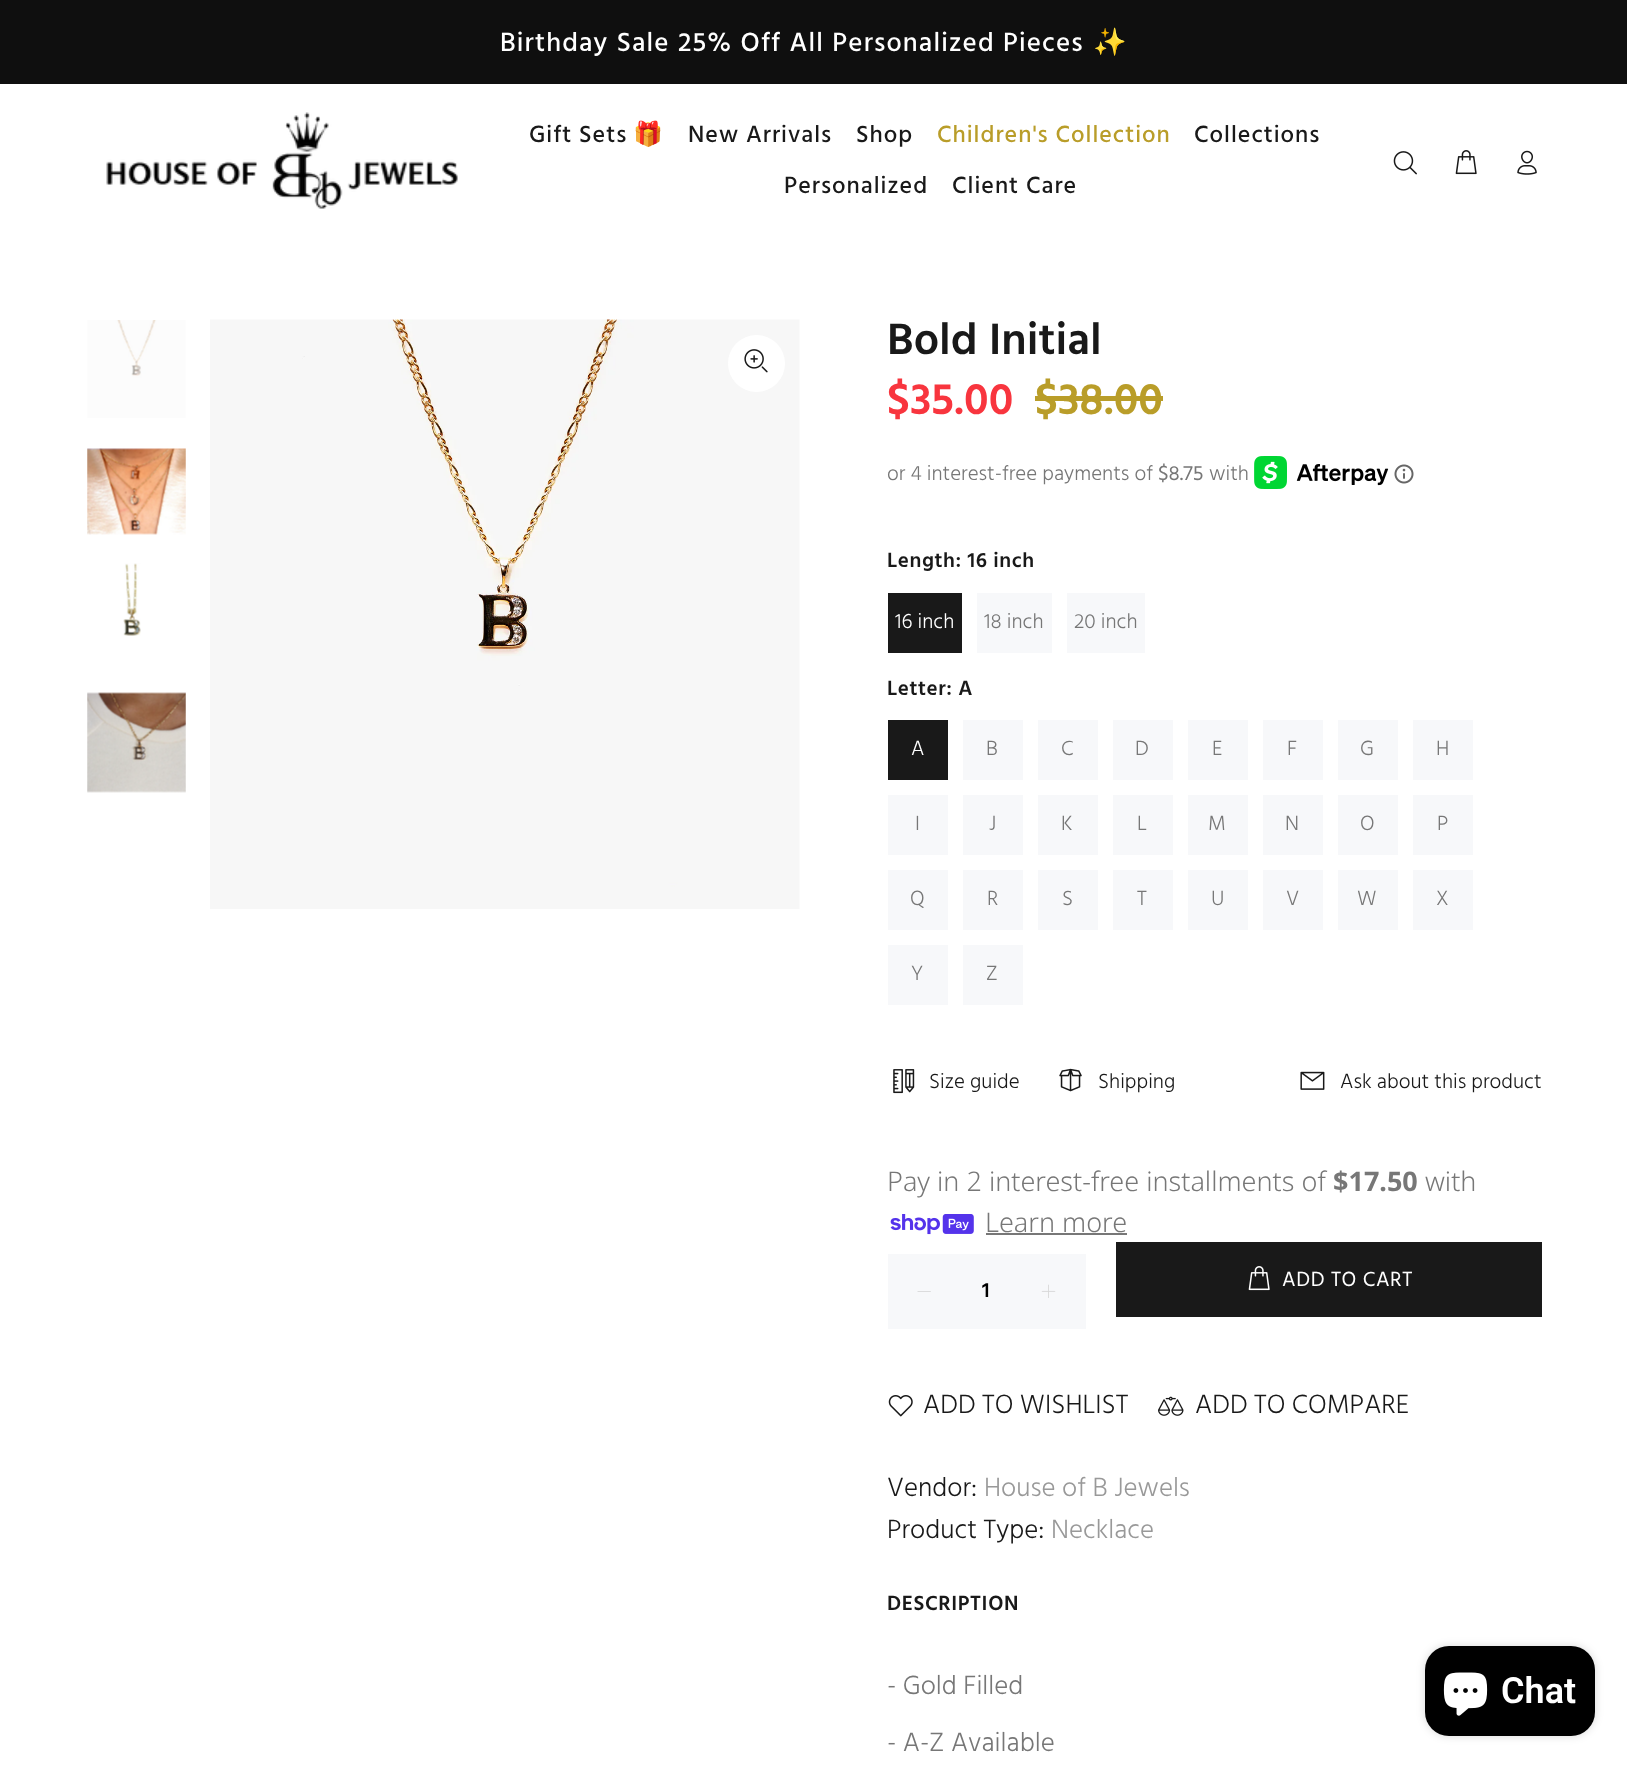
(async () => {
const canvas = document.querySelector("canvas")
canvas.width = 1627
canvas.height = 1767
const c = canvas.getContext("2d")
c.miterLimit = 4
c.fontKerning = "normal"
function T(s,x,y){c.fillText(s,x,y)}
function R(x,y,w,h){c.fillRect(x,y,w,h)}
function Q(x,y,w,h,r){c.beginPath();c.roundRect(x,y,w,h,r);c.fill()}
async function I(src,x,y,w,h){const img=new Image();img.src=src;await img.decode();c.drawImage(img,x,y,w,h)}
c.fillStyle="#fff"
R(0,0,1627,1767)
c.fillStyle="#0f0f0f"
R(0,0,1627,84)
c.letterSpacing="1.15px"
c.wordSpacing="0.5px"
c.font="500 27px Hind"
c.fillStyle="#fff"
T("Birthday Sale 25% Off All Personalized Pieces",500,51)
c.wordSpacing="0px"
c.font="27px Noto Color Emoji"
T("✨",1093,51)
await I("1.png",106,112,352,97)
c.letterSpacing="1px"
c.font="500 24px Hind"
c.fillStyle="#191919"
T("Gift Sets",529,142)
c.font="24px Noto Color Emoji"
T("🎁",633,142)
c.font="500 24px Hind"
T("New Arrivals",688,142)
T("Shop",856,142)
c.fillStyle="#b99d29"
T("Children's Collection",937,142)
c.fillStyle="#191919"
T("Collections",1194,142)
T("Personalized",784,193)
T("Client Care",952,193)
await I("2.png",1393,151,24,24)
await I("3.png",1455,150,22,25)
await I("4.png",1517,150,20,25)
await I("5.png",87,320,99,98)
await I("6.png",87,448,99,87)
await I("7.png",123,563,18,73)
await I("8.png",87,692,99,101)
await I("9.png",210,319,590,590)
c.fillStyle="#fff"
c.beginPath()
c.arc(756.5,363.5,28.5,0,7)
c.fill()
await I("10.png",744,349,24,24)
c.letterSpacing="0px"
c.font="600 45px Hind"
c.fillStyle="#191919"
T("Bold Initial",887,354)
c.fillStyle="#f8353e"
T("$35.00",887,414)
c.fillStyle="#b99d29"
T("$38.00",1035,414)
R(1035,396,128,5)
c.font="300 21px Hind"
c.fillStyle="#777"
T("or 4 interest-free payments of",887,480)
c.font="21px Hind"
T("$8.75",1158,480)
c.font="300 21px Hind"
T("with",1209,480)
await I("11.png",1254,456,135,33)
await I("12.png",1394,464,20,20)
c.letterSpacing="0.6px"
c.font="600 21px Hind"
c.fillStyle="#191919"
T("Length: 16 inch",887,567)
R(888,593,74,60)
c.letterSpacing="0px"
c.font="300 21px Hind"
c.fillStyle="#fff"
T("16 inch",895,628)
c.fillStyle="#f7f8fa"
R(977,593,75,60)
c.fillStyle="#777"
T("18 inch",984,628)
c.fillStyle="#f7f8fa"
R(1067,593,78,60)
c.fillStyle="#777"
T("20 inch",1074,628)
c.letterSpacing="0.6px"
c.font="600 21px Hind"
c.fillStyle="#191919"
T("Letter: A",887,695)
R(888,720,60,60)
c.letterSpacing="0px"
c.font="300 21px Hind"
c.fillStyle="#fff"
T("A",911,755)
c.fillStyle="#f7f8fa"
R(963,720,60,60)
c.fillStyle="#777"
T("B",986,755)
c.fillStyle="#f7f8fa"
R(1038,720,60,60)
c.fillStyle="#777"
T("C",1061,755)
c.fillStyle="#f7f8fa"
R(1113,720,60,60)
c.fillStyle="#777"
T("D",1135,755)
c.fillStyle="#f7f8fa"
R(1188,720,60,60)
c.fillStyle="#777"
T("E",1212,755)
c.fillStyle="#f7f8fa"
R(1263,720,60,60)
c.fillStyle="#777"
T("F",1287,755)
c.fillStyle="#f7f8fa"
R(1338,720,60,60)
c.fillStyle="#777"
T("G",1360,755)
c.fillStyle="#f7f8fa"
R(1413,720,60,60)
c.fillStyle="#777"
T("H",1436,755)
c.fillStyle="#f7f8fa"
R(888,795,60,60)
c.fillStyle="#777"
T("I",915,830)
c.fillStyle="#f7f8fa"
R(963,795,60,60)
c.fillStyle="#777"
T("J",989,830)
c.fillStyle="#f7f8fa"
R(1038,795,60,60)
c.fillStyle="#777"
T("K",1061,830)
c.fillStyle="#f7f8fa"
R(1113,795,60,60)
c.fillStyle="#777"
T("L",1137,830)
c.fillStyle="#f7f8fa"
R(1188,795,60,60)
c.fillStyle="#777"
T("M",1208,830)
c.fillStyle="#f7f8fa"
R(1263,795,60,60)
c.fillStyle="#777"
T("N",1285,830)
c.fillStyle="#f7f8fa"
R(1338,795,60,60)
c.fillStyle="#777"
T("O",1360,830)
c.fillStyle="#f7f8fa"
R(1413,795,60,60)
c.fillStyle="#777"
T("P",1437,830)
c.fillStyle="#f7f8fa"
R(888,870,60,60)
c.fillStyle="#777"
T("Q",910,905)
c.fillStyle="#f7f8fa"
R(963,870,60,60)
c.fillStyle="#777"
T("R",987,905)
c.fillStyle="#f7f8fa"
R(1038,870,60,60)
c.fillStyle="#777"
T("S",1062,905)
c.fillStyle="#f7f8fa"
R(1113,870,60,60)
c.fillStyle="#777"
T("T",1137,905)
c.fillStyle="#f7f8fa"
R(1188,870,60,60)
c.fillStyle="#777"
T("U",1211,905)
c.fillStyle="#f7f8fa"
R(1263,870,60,60)
c.fillStyle="#777"
T("V",1286,905)
c.fillStyle="#f7f8fa"
R(1338,870,60,60)
c.fillStyle="#777"
T("W",1357,905)
c.fillStyle="#f7f8fa"
R(1413,870,60,60)
c.fillStyle="#777"
T("X",1436,905)
c.fillStyle="#f7f8fa"
R(888,945,60,60)
c.fillStyle="#777"
T("Y",911,980)
c.fillStyle="#f7f8fa"
R(963,945,60,60)
c.fillStyle="#777"
T("Z",986,980)
await I("13.png",893,1069,22,25)
c.fillStyle="#191919"
T("Size guide",929,1088)
await I("14.png",1059,1068,23,24)
T("Shipping",1098,1088)
await I("15.png",1300,1071,25,19)
T("Ask about this product",1340,1088)
c.font="300 27px Noto Sans"
c.fillStyle="#777"
T("Pay in 2 interest-free installments of",887,1191)
c.font="bold 27px Noto Sans"
T("$17.50",1333,1191)
c.font="300 27px Noto Sans"
T("with",1425,1191)
await I("16.png",890,1214,84,21)
T("Learn more",985,1232)
R(986,1233,141,2)
c.fillStyle="#191919"
R(1116,1242,426,75)
await I("17.png",1248,1266,22,25)
c.letterSpacing="0.6px"
c.font="21px Hind"
c.fillStyle="#fff"
T("ADD TO CART",1282,1286)
c.fillStyle="#f7f8fa"
R(888,1254,198,75)
await I("18.png",917,1291,14,1)
c.letterSpacing="0px"
c.font="600 21px Hind"
c.fillStyle="#000"
T("1",982,1297)
await I("19.png",1041,1284,15,14)
await I("20.png",888,1395,25,22)
c.font="300 27px Hind"
c.fillStyle="#191919"
T("ADD TO WISHLIST",923,1413)
await I("21.png",1158,1396,26,20)
T("ADD TO COMPARE",1195,1413)
T("Vendor:",887,1496)
c.fillStyle="#999"
T("House of B Jewels",984,1496)
c.fillStyle="#191919"
T("Product Type:",887,1538)
c.fillStyle="#999"
T("Necklace",1051,1538)
c.letterSpacing="0.6px"
c.font="600 21px Hind"
c.fillStyle="#191919"
T("DESCRIPTION",887,1610)
c.letterSpacing="0px"
c.font="300 27px Hind"
c.fillStyle="#777"
T("- Gold Filled",887,1694)
T("- A-Z Available",887,1751)
c.fillStyle="#00000026"
c.filter="blur(4px)"
c.beginPath()
c.roundRect(1425,1646,170,90,24)
c.fill()
c.filter="none"
c.fillStyle="#000"
Q(1425,1646,170,90,24)
await I("22.png",1443,1672,45,44)
c.font="600 36px Roboto"
c.fillStyle="#fff"
T("Chat",1501,1703)
})()
